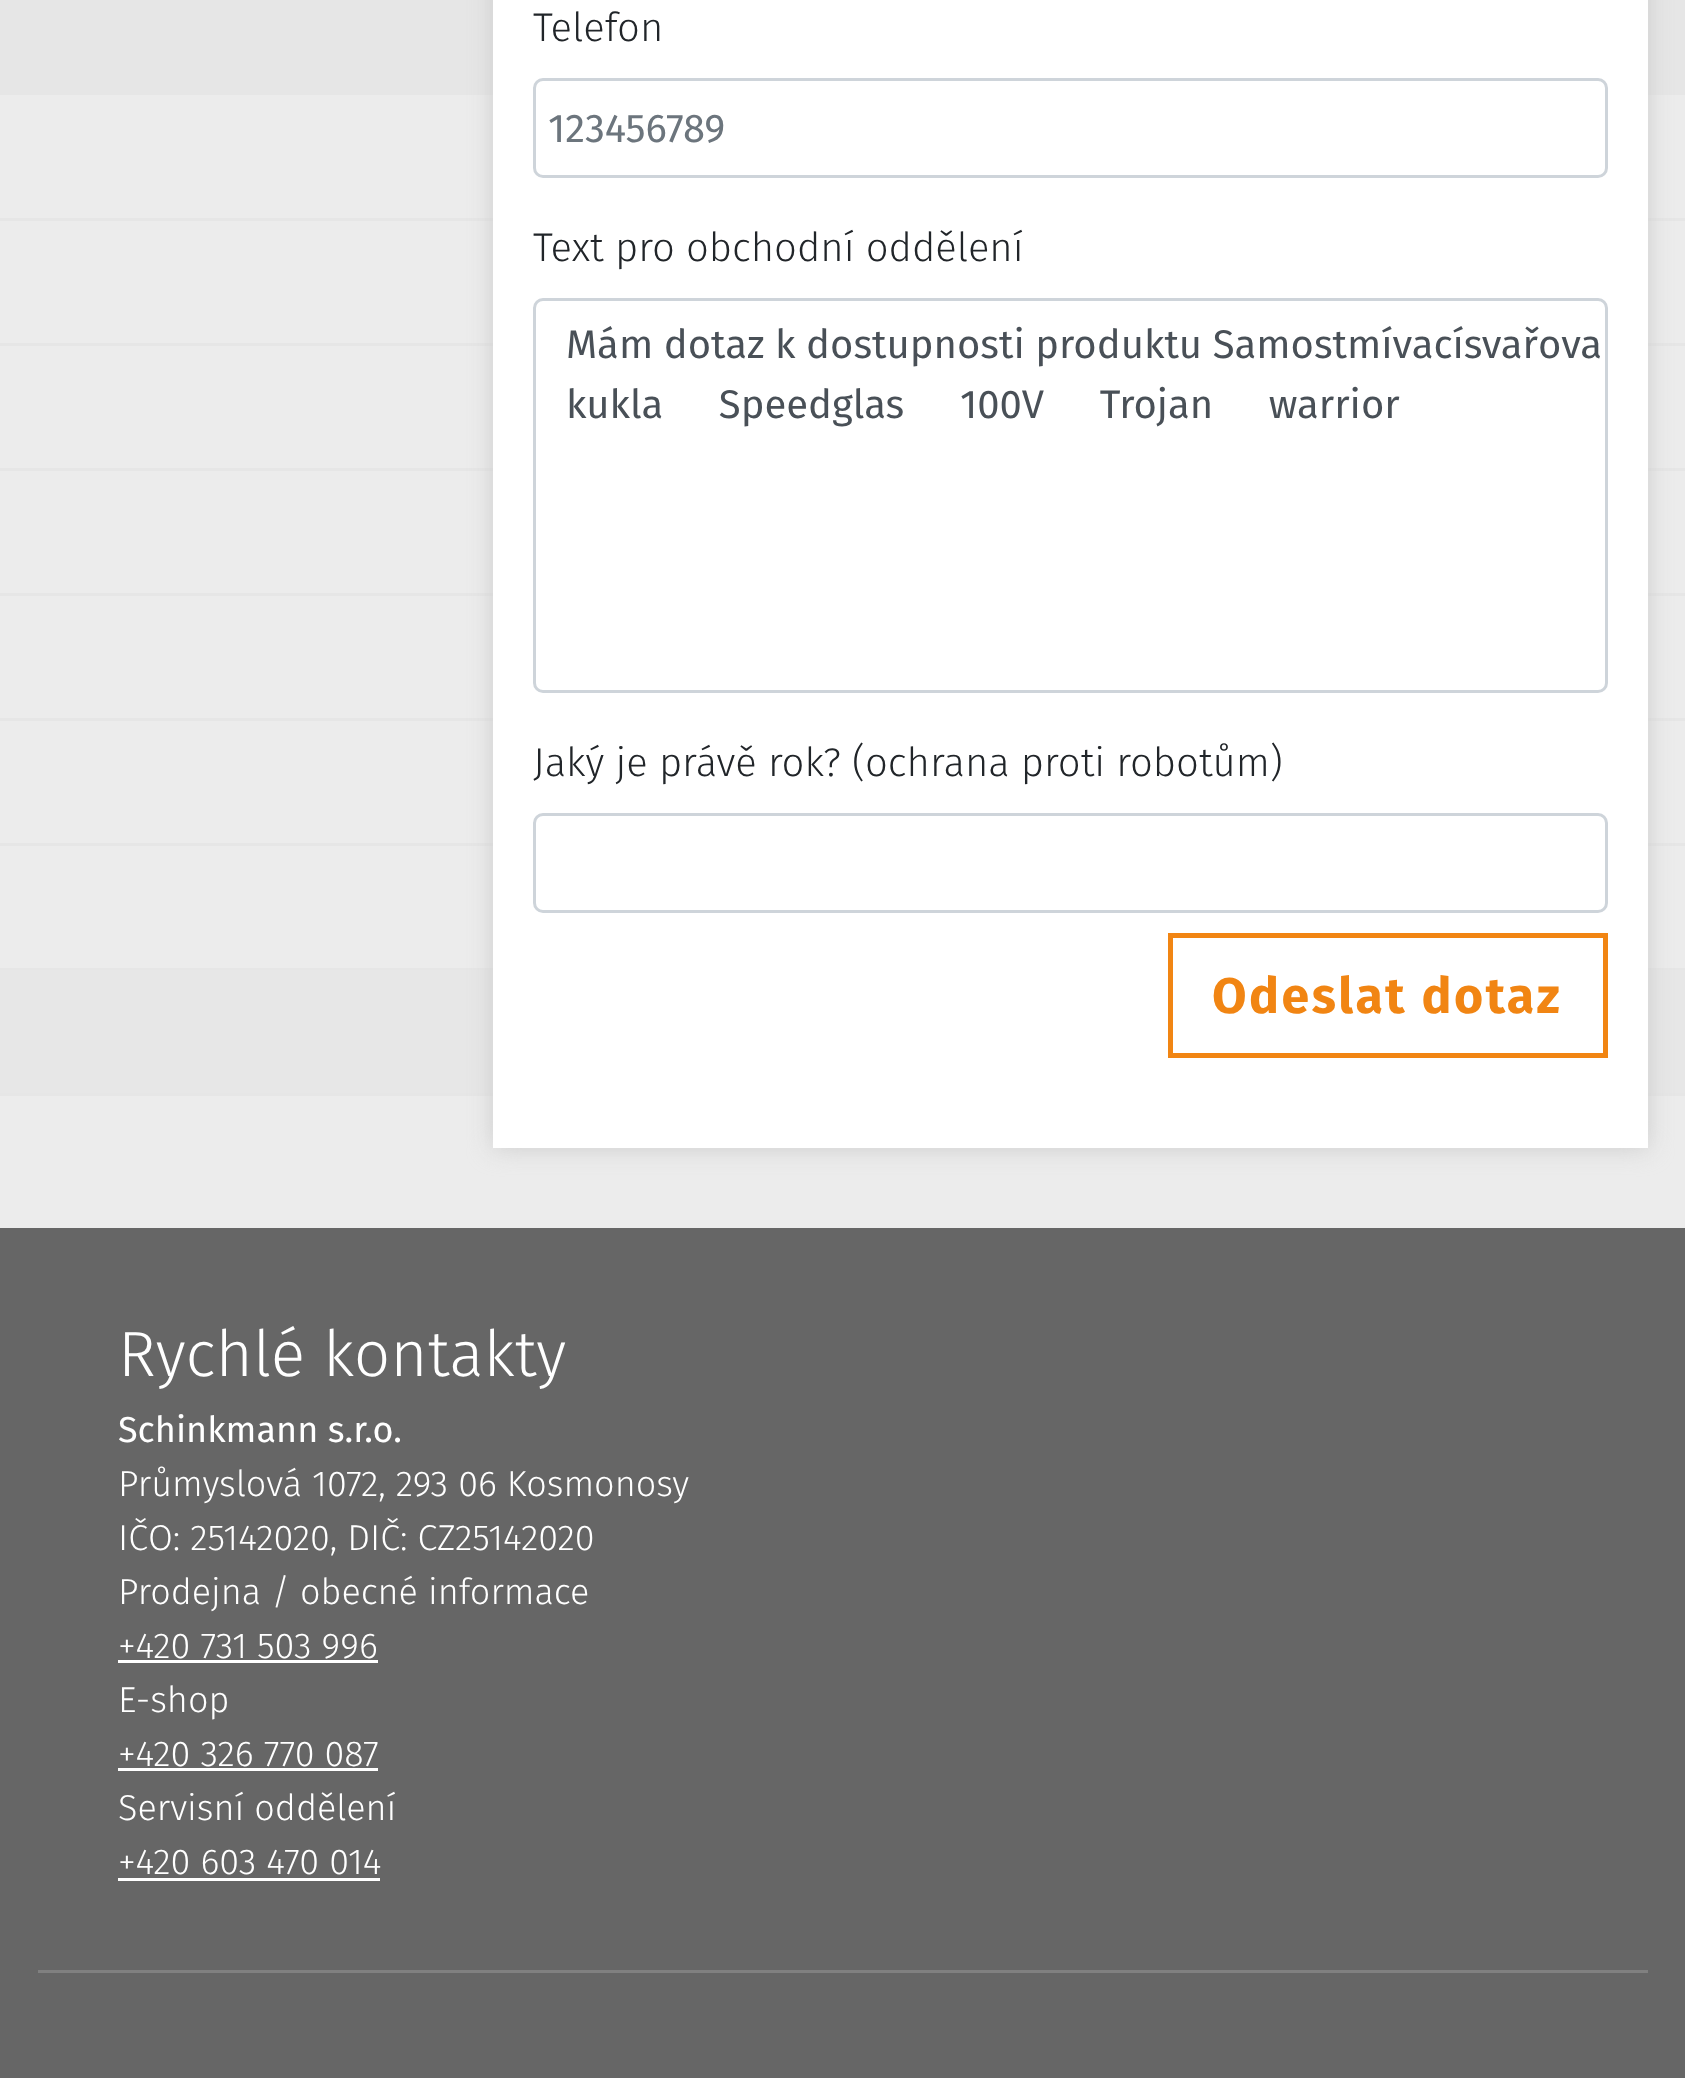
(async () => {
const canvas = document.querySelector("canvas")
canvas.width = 1685
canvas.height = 2078
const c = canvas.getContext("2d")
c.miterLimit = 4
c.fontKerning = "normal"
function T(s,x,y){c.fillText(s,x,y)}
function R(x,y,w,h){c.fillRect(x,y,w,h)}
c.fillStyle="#ececec"
R(0,0,1685,2078)
c.fillStyle="#e6e6e6"
R(0,0,1685,95)
R(0,218,1685,3)
R(0,343,1685,3)
R(0,468,1685,3)
R(0,593,1685,3)
R(0,718,1685,3)
R(0,843,1685,3)
R(0,968,1685,2)
c.fillStyle="#e7e7e7"
R(0,970,1685,123)
c.fillStyle="#e6e6e6"
R(0,1093,1685,3)
c.fillStyle="#ccc"
c.filter="blur(12.5px)"
c.beginPath()
c.rect(493,-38,1155,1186)
c.fill()
c.filter="none"
c.fillStyle="#fff"
R(493,0,1155,1148)
c.font="300 40px Fira Sans"
c.fillStyle="#212529"
T("Telefon",533,41)
c.beginPath()
c.roundRect(534.5,79.5,1072,97,8.5)
c.strokeStyle="#ced4da"
c.lineWidth=3
c.stroke()
c.font="40px Fira Sans"
c.fillStyle="#6c757d"
T("123456789",548,142)
c.font="300 40px Fira Sans"
c.fillStyle="#212529"
T("Text pro obchodní oddělení",533,261)
c.beginPath()
c.roundRect(534.5,299.5,1072,392,8.5)
c.stroke()
c.font="40px Fira Sans"
c.fillStyle="#495057"
T("Mám dotaz k dostupnosti produktu Samostmívacísvařova",566,358)
c.wordSpacing="45px"
T("kukla Speedglas 100V Trojan warrior",566,418)
c.wordSpacing="0px"
c.font="300 40px Fira Sans"
c.fillStyle="#212529"
T("Jaký je právě rok? (ochrana proti robotům)",533,776)
c.beginPath()
c.roundRect(534.5,814.5,1072,97,8.5)
c.stroke()
c.strokeStyle="#f18513"
c.lineWidth=5
c.strokeRect(1170.5,935.5,435,120)
c.letterSpacing="2.5px"
c.font="bold 50px Fira Sans"
c.fillStyle="#f18513"
T("Odeslat dotaz",1212,1013)
c.fillStyle="#666"
R(0,1228,1685,850)
c.fillStyle="#808080"
R(38,1970,1610,3)
c.letterSpacing="0px"
c.font="300 64px Fira Sans"
c.fillStyle="#fff"
T("Rychlé kontakty",118,1376)
c.font="36px Fira Sans"
T("Schinkmann s.r.o.",118,1442)
c.font="300 36px Fira Sans"
T("Průmyslová 1072, 293 06 Kosmonosy",118,1496)
T("IČO: 25142020, DIČ: CZ25142020",118,1550)
T("Prodejna / obecné informace",118,1604)
T("+420 731 503 996",118,1658)
R(118,1660,260,3)
T("E-shop",118,1712)
T("+420 326 770 087",118,1766)
R(118,1768,260,3)
T("Servisní oddělení",118,1820)
T("+420 603 470 014",118,1874)
R(118,1878,262,3)
})()
